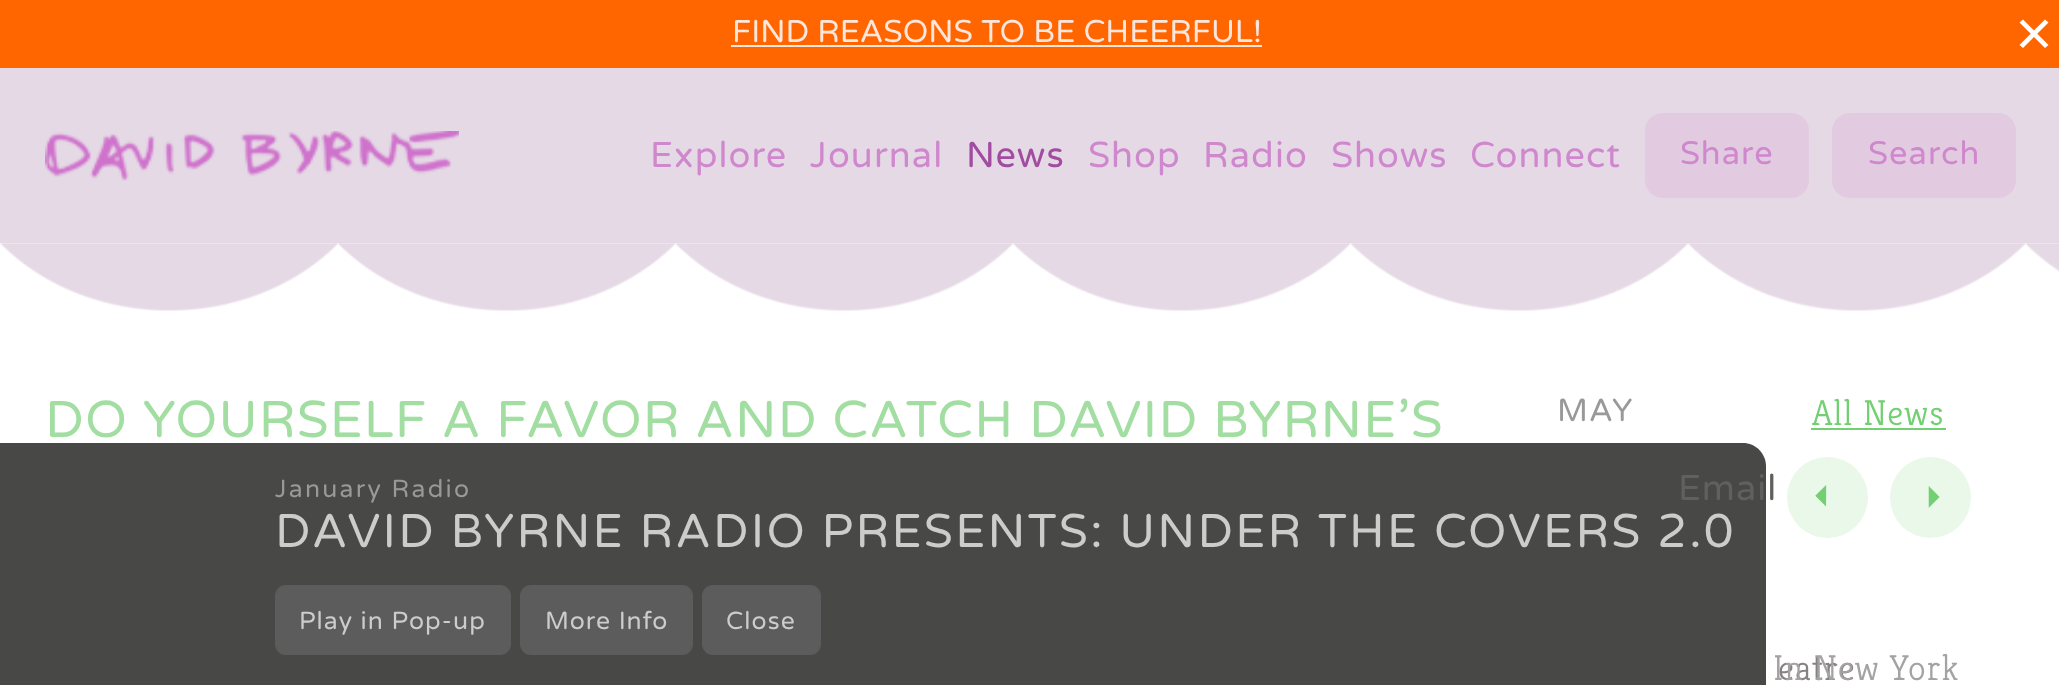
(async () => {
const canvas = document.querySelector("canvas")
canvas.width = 2059
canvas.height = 685
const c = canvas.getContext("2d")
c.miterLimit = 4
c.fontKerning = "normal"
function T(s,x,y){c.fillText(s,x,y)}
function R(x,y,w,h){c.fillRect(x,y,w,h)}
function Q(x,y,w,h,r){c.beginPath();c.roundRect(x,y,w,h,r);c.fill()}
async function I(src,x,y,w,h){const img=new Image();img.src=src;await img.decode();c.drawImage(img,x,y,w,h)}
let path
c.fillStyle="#fff"
R(0,0,2059,685)
c.fillStyle="#f60"
R(0,0,2059,68)
c.font="31.5px Varela Round"
c.fillStyle="#ffe6dd"
T("FIND REASONS TO BE CHEERFUL!",732,42)
R(731,45,531,2)
c.fillStyle="#fff"
path = new Path2D("M2023 19.5l25.5 25.5l-3.5 3l-25.5-25.5z")
c.fill(path)
path = new Path2D("M2019.5 45l25.5-25.5l3.5 3l-25.5 25.5z")
c.fill(path)
c.fillStyle="#e5d9e5"
R(0,68,2059,175)
await I("1.png",45,131,414,50)
c.letterSpacing="1.1px"
c.font="36px Varela Round"
c.fillStyle="#cf87cd"
T("Explore",650,167)
T("Journal",810,167)
c.fillStyle="#a14ca1"
T("News",966,167)
c.fillStyle="#cf87cd"
T("Shop",1088,167)
T("Radio",1203,167)
T("Shows",1331,167)
T("Connect",1470,167)
c.fillStyle="#e2cae1"
Q(1645,113,164,85,18)
c.font="32.5px Varela Round"
c.fillStyle="#cf87cd"
T("Share",1680,164)
c.fillStyle="#484846"
path = new Path2D("M0 443h1743c12.5 0 23 10.5 23 23v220h-1766z")
c.fill(path)
c.font="36px Varela Round"
c.fillStyle="#60605e"
T("Email",1678,500)
c.fillStyle="#e2cae1"
Q(1832,113,184,85,18)
c.font="32.5px Varela Round"
c.fillStyle="#cf87cd"
T("Search",1868,164)
await I("2.png",0,243,2059,68)
c.font="51.75px Varela Round"
c.fillStyle="#a2dea2"
T("DO YOURSELF A FAVOR AND CATCH DAVID BYRNE’S",45,437)
c.font="32px Varela Round"
c.fillStyle="#999"
T("MAY",1557,421)
c.font="300 36px Kreon"
c.fillStyle="#72cf72"
T("All News",1812,425)
R(1811,428,135,2)
c.fillStyle="#eaf8ea"
c.beginPath()
c.arc(1827.5,497.5,40.5,0,7)
c.fill()
c.letterSpacing="1px"
c.font="20px DejaVu Sans"
c.fillStyle="#72cf72"
c.save()
c.translate(1817,494)
c.rotate(45 * Math.PI / 180)
c.fillText("◣",0,0)
c.restore()
c.letterSpacing="1.1px"
c.font="300 36px Kreon"
c.fillStyle="#868182"
T("eatre",1778,680)
c.fillStyle="#eaf8ea"
c.beginPath()
c.arc(1930.5,497.5,40.5,0,7)
c.fill()
c.letterSpacing="1px"
c.font="20px DejaVu Sans"
c.fillStyle="#72cf72"
c.save()
c.translate(1927,506)
c.rotate(-45 * Math.PI / 180)
c.fillText("◢",0,0)
c.restore()
c.letterSpacing="1.1px"
c.font="300 36px Kreon"
c.fillStyle="#a5a2a2"
T("In New York",1773,680)
c.letterSpacing="2.25px"
c.font="24.75px Varela Round"
c.fillStyle="#999"
T("January Radio",275,497)
c.font="47.25px Varela Round"
c.fillStyle="#ccc"
T("DAVID BYRNE RADIO PRESENTS: UNDER THE COVERS 2.0",275,547)
c.fillStyle="#5c5c5c"
Q(275,585,236,70,11)
c.letterSpacing="1.1px"
c.font="24.75px Varela Round"
c.fillStyle="#ccc"
T("Play in Pop-up",299,629)
c.fillStyle="#5c5c5c"
Q(520,585,173,70,11)
c.fillStyle="#ccc"
T("More Info",545,629)
c.fillStyle="#5c5c5c"
Q(702,585,119,70,11)
c.fillStyle="#ccc"
T("Close",726,629)
})()
